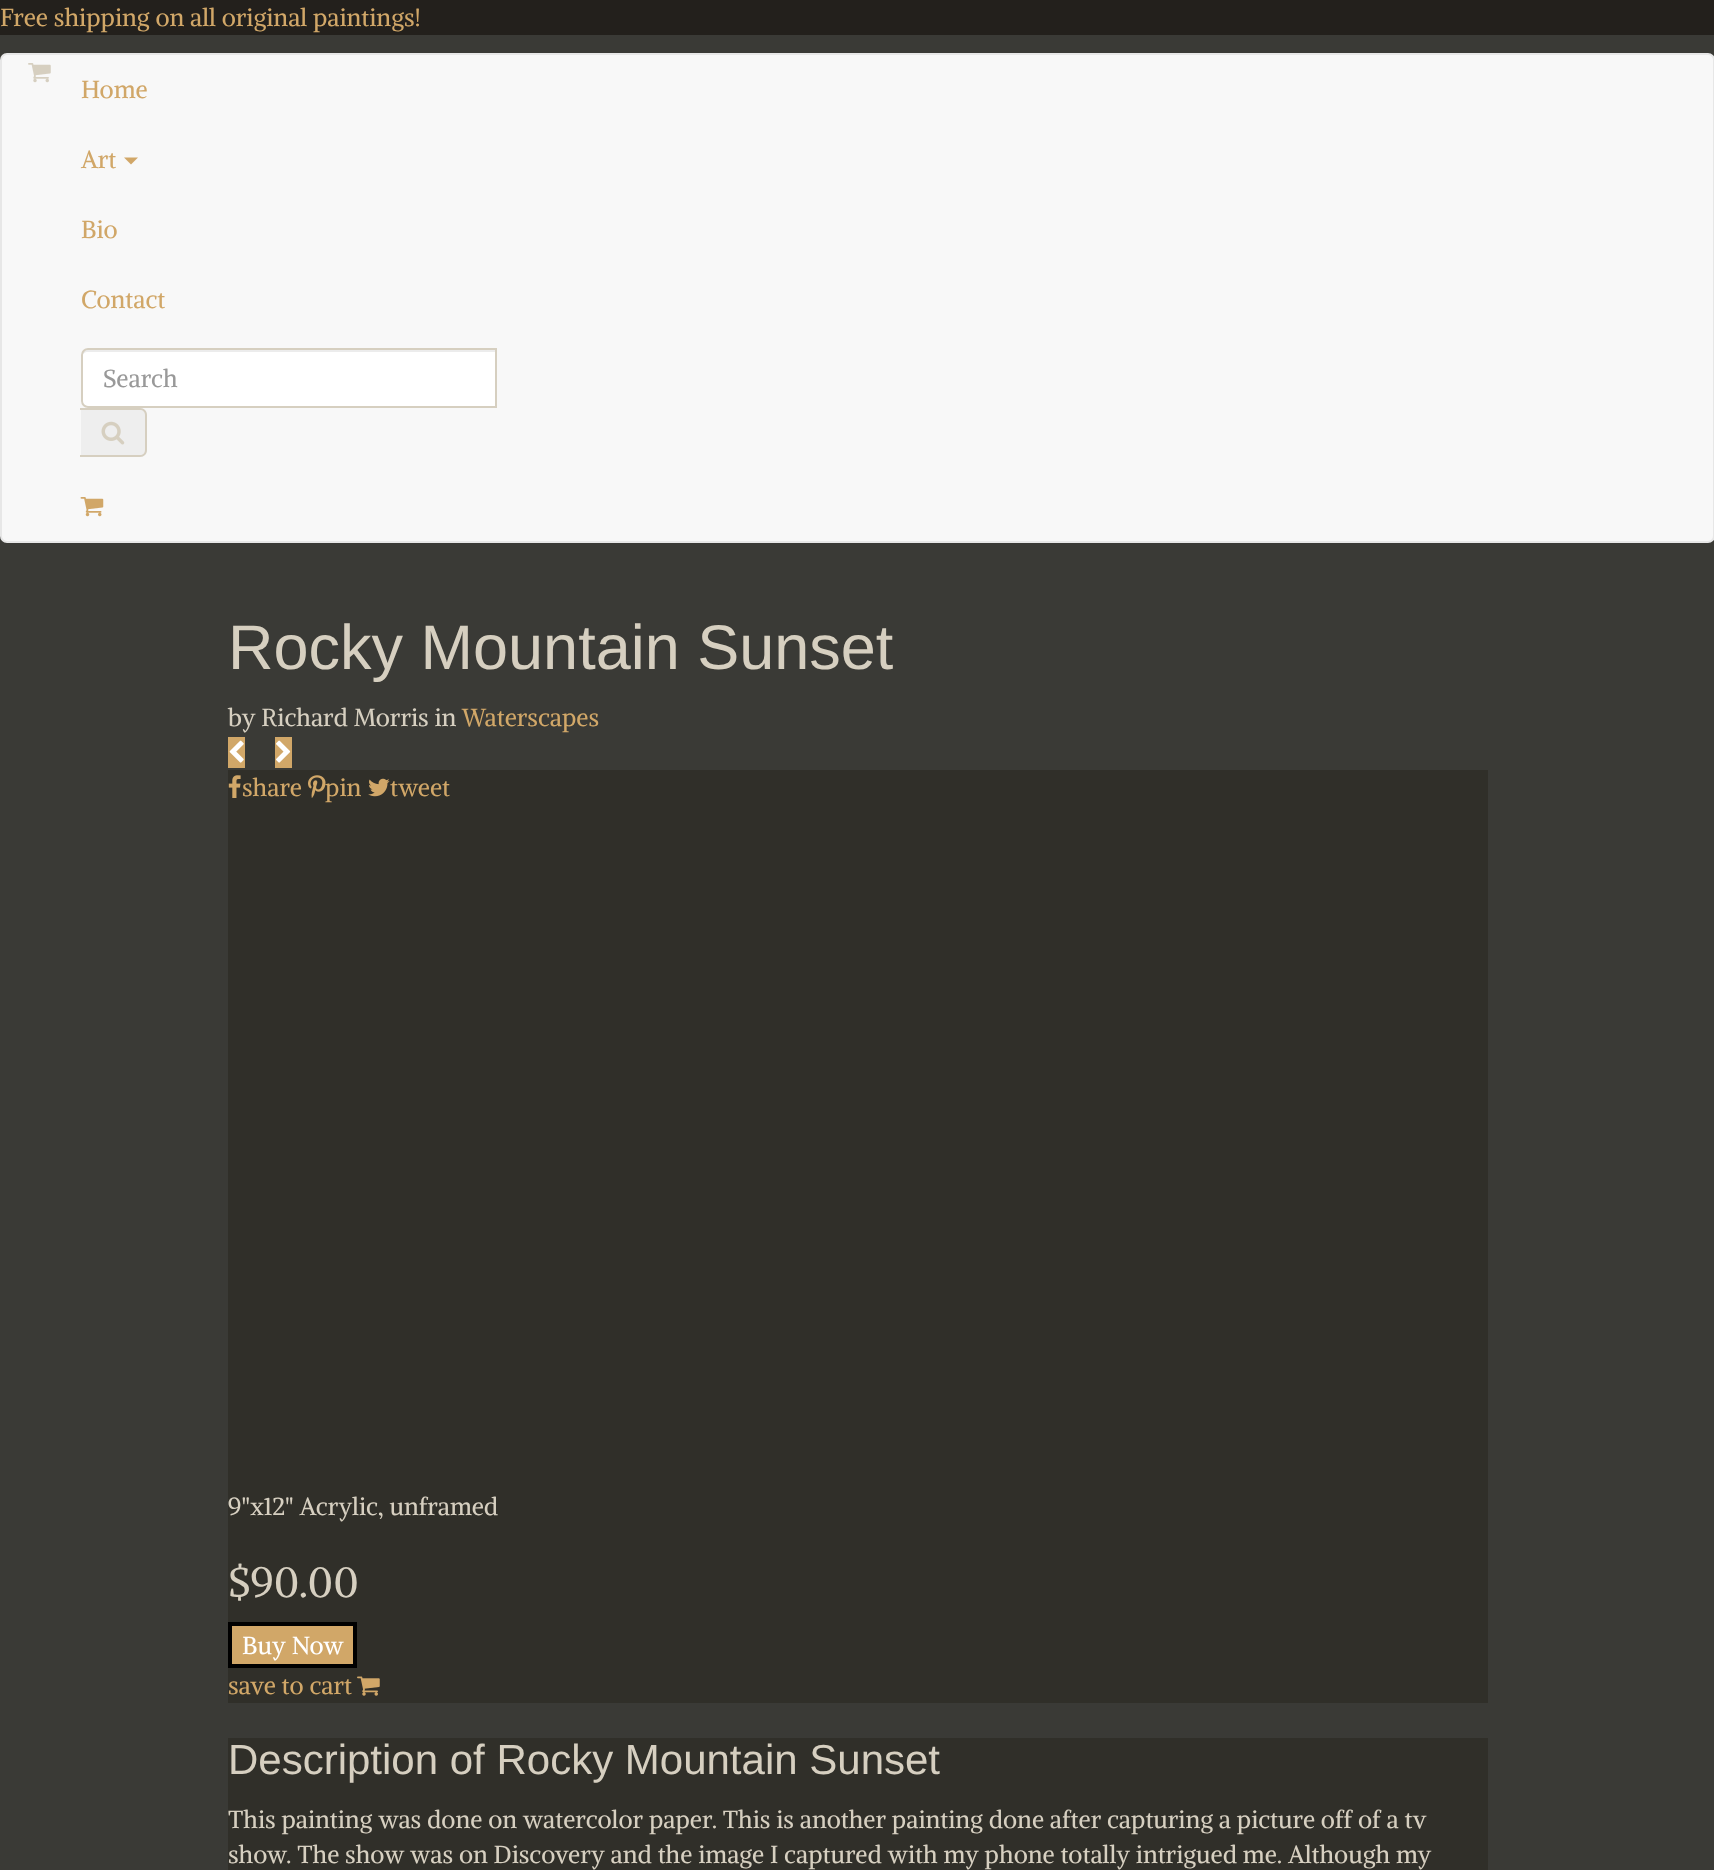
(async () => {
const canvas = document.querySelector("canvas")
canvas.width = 1714
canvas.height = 1870
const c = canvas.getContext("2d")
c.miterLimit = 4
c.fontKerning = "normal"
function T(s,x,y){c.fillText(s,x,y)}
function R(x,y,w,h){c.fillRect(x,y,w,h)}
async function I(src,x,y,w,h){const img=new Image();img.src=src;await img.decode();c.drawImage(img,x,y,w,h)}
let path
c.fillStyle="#3a3a36"
R(0,0,1714,1870)
c.fillStyle="#23201c"
R(0,0,1714,35)
c.font="24.5px Alike"
c.fillStyle="#d1a768"
T("Free shipping on all original paintings!",0,26)
c.fillStyle="#f8f8f8"
c.beginPath()
c.roundRect(1,54,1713,488,6)
c.fill()
c.strokeStyle="#e7e7e7"
c.lineWidth=2
c.stroke()
await I("1.png",28,63,23,20)
c.fillStyle="#d1a768"
T("Home",81,98)
T("Art",81,168)
path = new Path2D("M124 157.5h14l-7 7z")
c.fill(path)
T("Bio",81,238)
T("Contact",81,308)
c.fillStyle="#fff"
c.beginPath()
c.roundRect(81,348,416,60,[7,0,0,7])
c.fill()
c.fillStyle="#ececec"
path = new Path2D("M88 352h407v-2h-408c-4 0-5 4-5 7c0-3 3-5 6-5z")
c.fill(path)
c.beginPath()
c.roundRect(82,349,414,58,[6,0,0,6])
c.strokeStyle="#d6cfc0"
c.stroke()
c.fillStyle="#999"
T("Search",103,387)
c.fillStyle="#eee"
c.beginPath()
c.roundRect(81,408,66,49,[0,7,7,0])
c.fill()
c.fillStyle="#d6cfc0"
path = new Path2D("M80 408h60c4 0 7 3 7 7v35c0 4-3 7-7 7h-60zm0 2h60c3 0 5 2 5 5v35c0 3-2 5-5 5h-60z")
c.fill(path,"evenodd")
await I("2.png",101,421,24,24)
await I("3.png",80,497,24,20)
c.font="63px Liberation Sans"
T("Rocky Mountain Sunset",228,669)
c.font="24.5px Alike"
T("by Richard Morris in",228,726)
c.fillStyle="#d1a768"
T("Waterscapes",462,726)
R(228,737,17,31)
await I("4.png",229,740,15,23)
R(275,737,17,31)
await I("5.png",276,740,15,23)
c.fillStyle="#302f29"
R(228,770,1260,933)
await I("6.png",228,775,13,23)
c.fillStyle="#d1a768"
T("share",242,796)
await I("7.png",308,775,18,23)
T("pin",325,796)
await I("8.png",368,778,22,19)
T("tweet",390,796)
c.fillStyle="#d6cfc0"
T("9\"x12\" Acrylic, unframed",228,1515)
c.font="42px Alike"
T("$90.00",228,1597)
c.fillStyle="#d1a768"
c.beginPath()
c.rect(230,1624,125,42)
c.fill()
c.strokeStyle="#000"
c.lineWidth=4
c.stroke()
c.font="24.5px Alike"
c.fillStyle="#fff"
T("Buy Now",242,1654)
c.fillStyle="#d1a768"
T("save to cart",228,1694)
await I("9.png",357,1676,23,20)
c.fillStyle="#302f29"
R(228,1738,1260,132)
c.font="42px Liberation Sans"
c.fillStyle="#d6cfc0"
T("Description of Rocky Mountain Sunset",228,1774)
c.font="24.5px Alike"
T("This painting was done on watercolor paper. This is another painting done after capturing a picture off of a tv",228,1828)
T("show. The show was on Discovery and the image I captured with my phone totally intrigued me. Although my",228,1863)
})()
